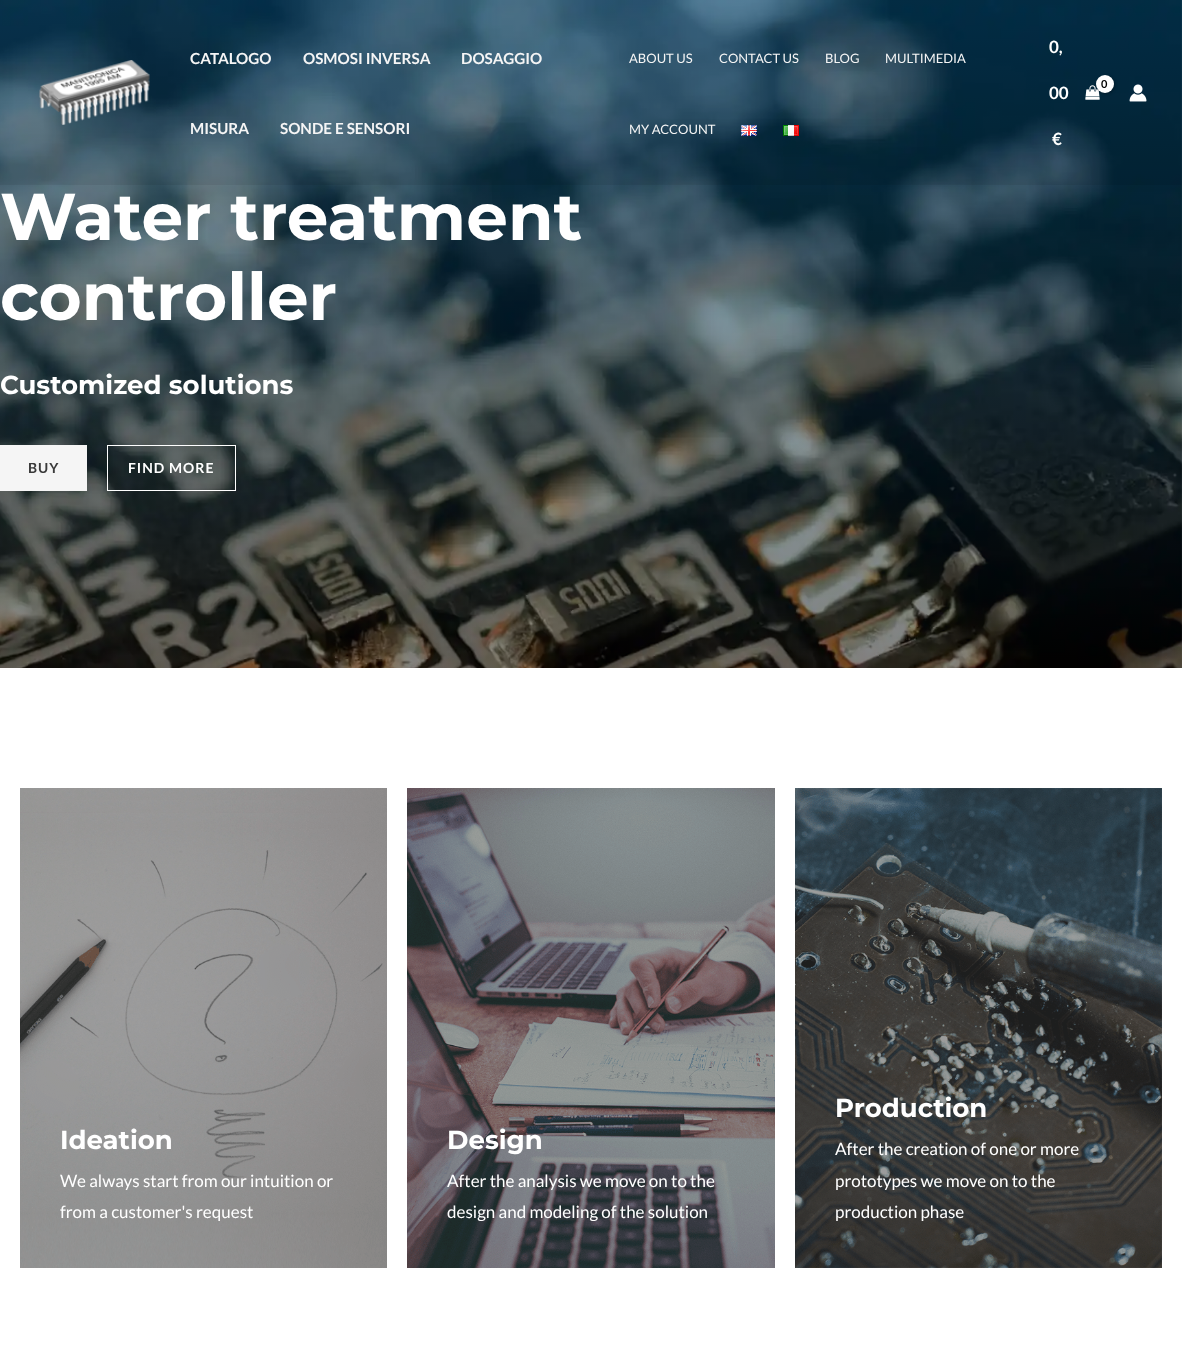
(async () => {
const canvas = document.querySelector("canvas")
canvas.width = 1182
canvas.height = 1354
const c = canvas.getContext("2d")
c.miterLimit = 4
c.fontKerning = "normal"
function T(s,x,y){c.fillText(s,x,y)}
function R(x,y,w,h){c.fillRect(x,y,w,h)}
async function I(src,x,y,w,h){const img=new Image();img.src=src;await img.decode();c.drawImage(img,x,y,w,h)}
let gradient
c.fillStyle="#fff"
R(0,0,1182,1354)
await I("6.png",0,0,1182,668)
gradient = c.createLinearGradient(591,-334,591,668)
gradient.addColorStop(0,"#0084d67d")
gradient.addColorStop(1,"#0000007d")
c.fillStyle = gradient
R(0,0,1182,668)
c.fillStyle="#00000012"
R(0,0,1182,185)
await I("1.png",39,60,111,65)
c.font="bold 15.25px Lato"
c.fillStyle="#f5f5f5"
T("CATALOGO",190,64)
T("OSMOSI INVERSA",303,64)
T("DOSAGGIO",461,64)
T("MISURA",190,134)
T("SONDE E SENSORI",280,134)
c.font="13px Lato"
T("ABOUT US",629,63)
T("CONTACT US",719,63)
T("BLOG",825,63)
T("MULTIMEDIA",885,63)
T("MY ACCOUNT",629,134)
await I("2.png",741,125,16,11)
await I("3.png",783,125,16,11)
c.font="bold 17px Lato"
c.fillStyle="#fff"
T("0,",1049,53)
T("00",1049,99)
T("€",1052,145)
await I("4.png",1085,85,15,15)
c.fillStyle="#0000004d"
c.filter="blur(1.5px)"
c.beginPath()
c.roundRect(1097,76,18,18,9)
c.fill()
c.filter="none"
c.fillStyle="#fff"
c.beginPath()
c.arc(1105,84,9,0,7)
c.fill()
c.font="bold 11px Lato"
c.fillStyle="#000"
T("0",1101,88)
await I("5.png",1129,84,18,18)
c.font="100 66px Montserrat"
c.fillStyle="#fff"
T("Water treatment",0,240)
T("controller",0,320)
c.font="100 26px Montserrat"
T("Customized solutions",0,394)
c.fillStyle="#f5f5f5"
R(0,445,87,46)
c.letterSpacing="1px"
c.font="bold 14px Lato"
c.fillStyle="#3a3a3a"
T("BUY",28,473)
c.strokeStyle="#fff"
c.strokeRect(107.5,445.5,128,45)
c.fillStyle="#fff"
T("FIND MORE",128,473)
await I("7.png",20,788,367,480)
c.letterSpacing="0px"
c.font="100 26px Montserrat"
T("Ideation",60,1149)
c.font="17px Lato"
T("We always start from our intuition or",60,1187)
T("from a customer's request",60,1218)
await I("8.png",407,788,368,480)
c.font="100 26px Montserrat"
T("Design",447,1149)
c.font="17px Lato"
T("After the analysis we move on to the",447,1187)
T("design and modeling of the solution",447,1218)
await I("9.png",795,788,367,480)
c.font="100 26px Montserrat"
T("Production",835,1117)
c.font="17px Lato"
T("After the creation of one or more",835,1155)
T("prototypes we move on to the",835,1187)
T("production phase",835,1218)
})()
